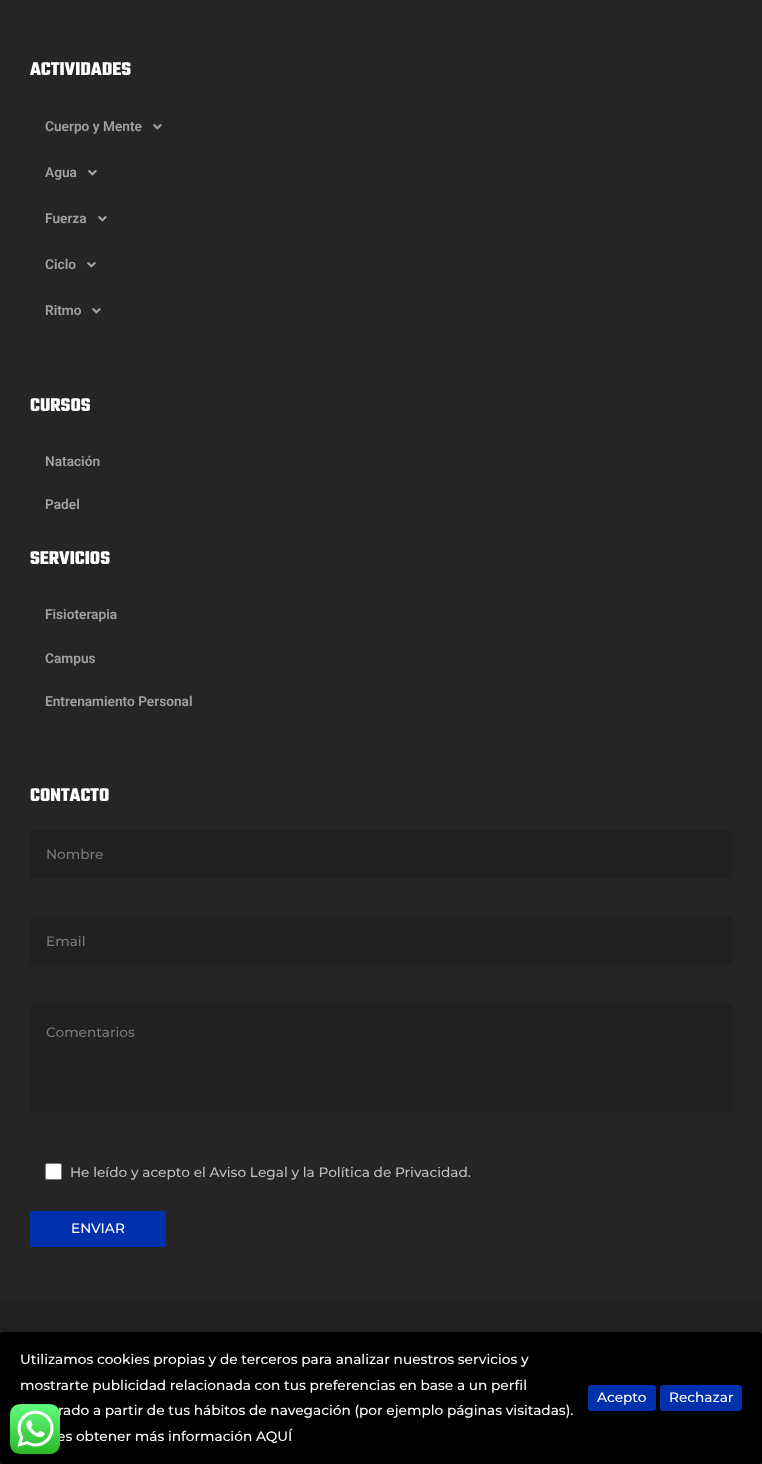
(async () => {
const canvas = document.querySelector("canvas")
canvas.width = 762
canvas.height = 1464
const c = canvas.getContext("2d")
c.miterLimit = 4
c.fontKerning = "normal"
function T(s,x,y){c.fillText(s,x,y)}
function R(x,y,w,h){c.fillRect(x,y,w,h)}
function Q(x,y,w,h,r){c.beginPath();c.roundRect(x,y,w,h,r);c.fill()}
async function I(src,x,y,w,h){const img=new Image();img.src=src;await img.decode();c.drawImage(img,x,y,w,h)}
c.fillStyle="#252525"
R(0,0,762,1464)
c.font="bold 20px Teko"
c.fillStyle="#fff"
T("ACTIVIDADES",30,75)
c.font="600 13.7px Roboto"
c.fillStyle="#a1a1a1"
T("Cuerpo y Mente",45,131)
await I("1.png",153,124,9,6)
T("Agua",45,177)
await I("1.png",88,170,9,6)
T("Fuerza",45,223)
await I("1.png",98,216,9,6)
T("Ciclo",45,269)
await I("1.png",87,262,9,6)
T("Ritmo",45,315)
await I("1.png",92,308,9,6)
c.font="bold 20px Teko"
c.fillStyle="#fff"
T("CURSOS",30,411)
c.font="600 13.7px Roboto"
c.fillStyle="#a1a1a1"
T("Natación",45,466)
T("Padel",45,509)
c.font="bold 20px Teko"
c.fillStyle="#fff"
T("SERVICIOS",30,564)
c.font="600 13.7px Roboto"
c.fillStyle="#a1a1a1"
T("Fisioterapia",45,619)
T("Campus",45,663)
T("Entrenamiento Personal",45,706)
c.font="bold 20px Teko"
c.fillStyle="#fff"
T("CONTACTO",30,801)
c.fillStyle="#212121"
Q(30,830,702,48,2)
c.font="500 13.7px Montserrat"
c.fillStyle="#7a7a7a"
T("Nombre",46,859)
c.fillStyle="#212121"
Q(30,917,702,48,2)
c.fillStyle="#7a7a7a"
T("Email",46,946)
c.fillStyle="#212121"
Q(30,1004,702,108,2)
c.fillStyle="#7a7a7a"
T("Comentarios",46,1037)
c.fillStyle="#fff"
c.beginPath()
c.roundRect(45.5,1163.5,16,16,1.5)
c.fill()
c.strokeStyle="#767676"
c.stroke()
c.fillStyle="#bebebe"
T("He leído y acepto el Aviso Legal y la Política de Privacidad.",70,1177)
c.fillStyle="#0030ab"
c.beginPath()
c.roundRect(30.5,1211.5,135,35,.5)
c.fill()
c.strokeStyle="#0030ab"
c.stroke()
c.fillStyle="#fff"
T("ENVIAR",71,1233)
c.fillStyle="#202020"
R(0,1301,762,163)
c.fillStyle="#000"
Q(0,1332,762,132,3)
c.fillStyle="#fff"
T("Utilizamos cookies propias y de terceros para analizar nuestros servicios y",20,1364)
T("mostrarte publicidad relacionada con tus preferencias en base a un perfil",20,1390)
T("rado a partir de tus hábitos de navegación (por ejemplo páginas visitadas).",58,1415)
T("es obtener más información AQUÍ",57,1441)
c.fillStyle="#0030ab"
Q(588,1385,68,26,3)
c.fillStyle="#fff"
T("Acepto",597,1402)
c.fillStyle="#0030ab"
Q(660,1385,82,26,3)
c.fillStyle="#fff"
T("Rechazar",669,1402)
await I("2.png",10,1404,50,50)
})()
